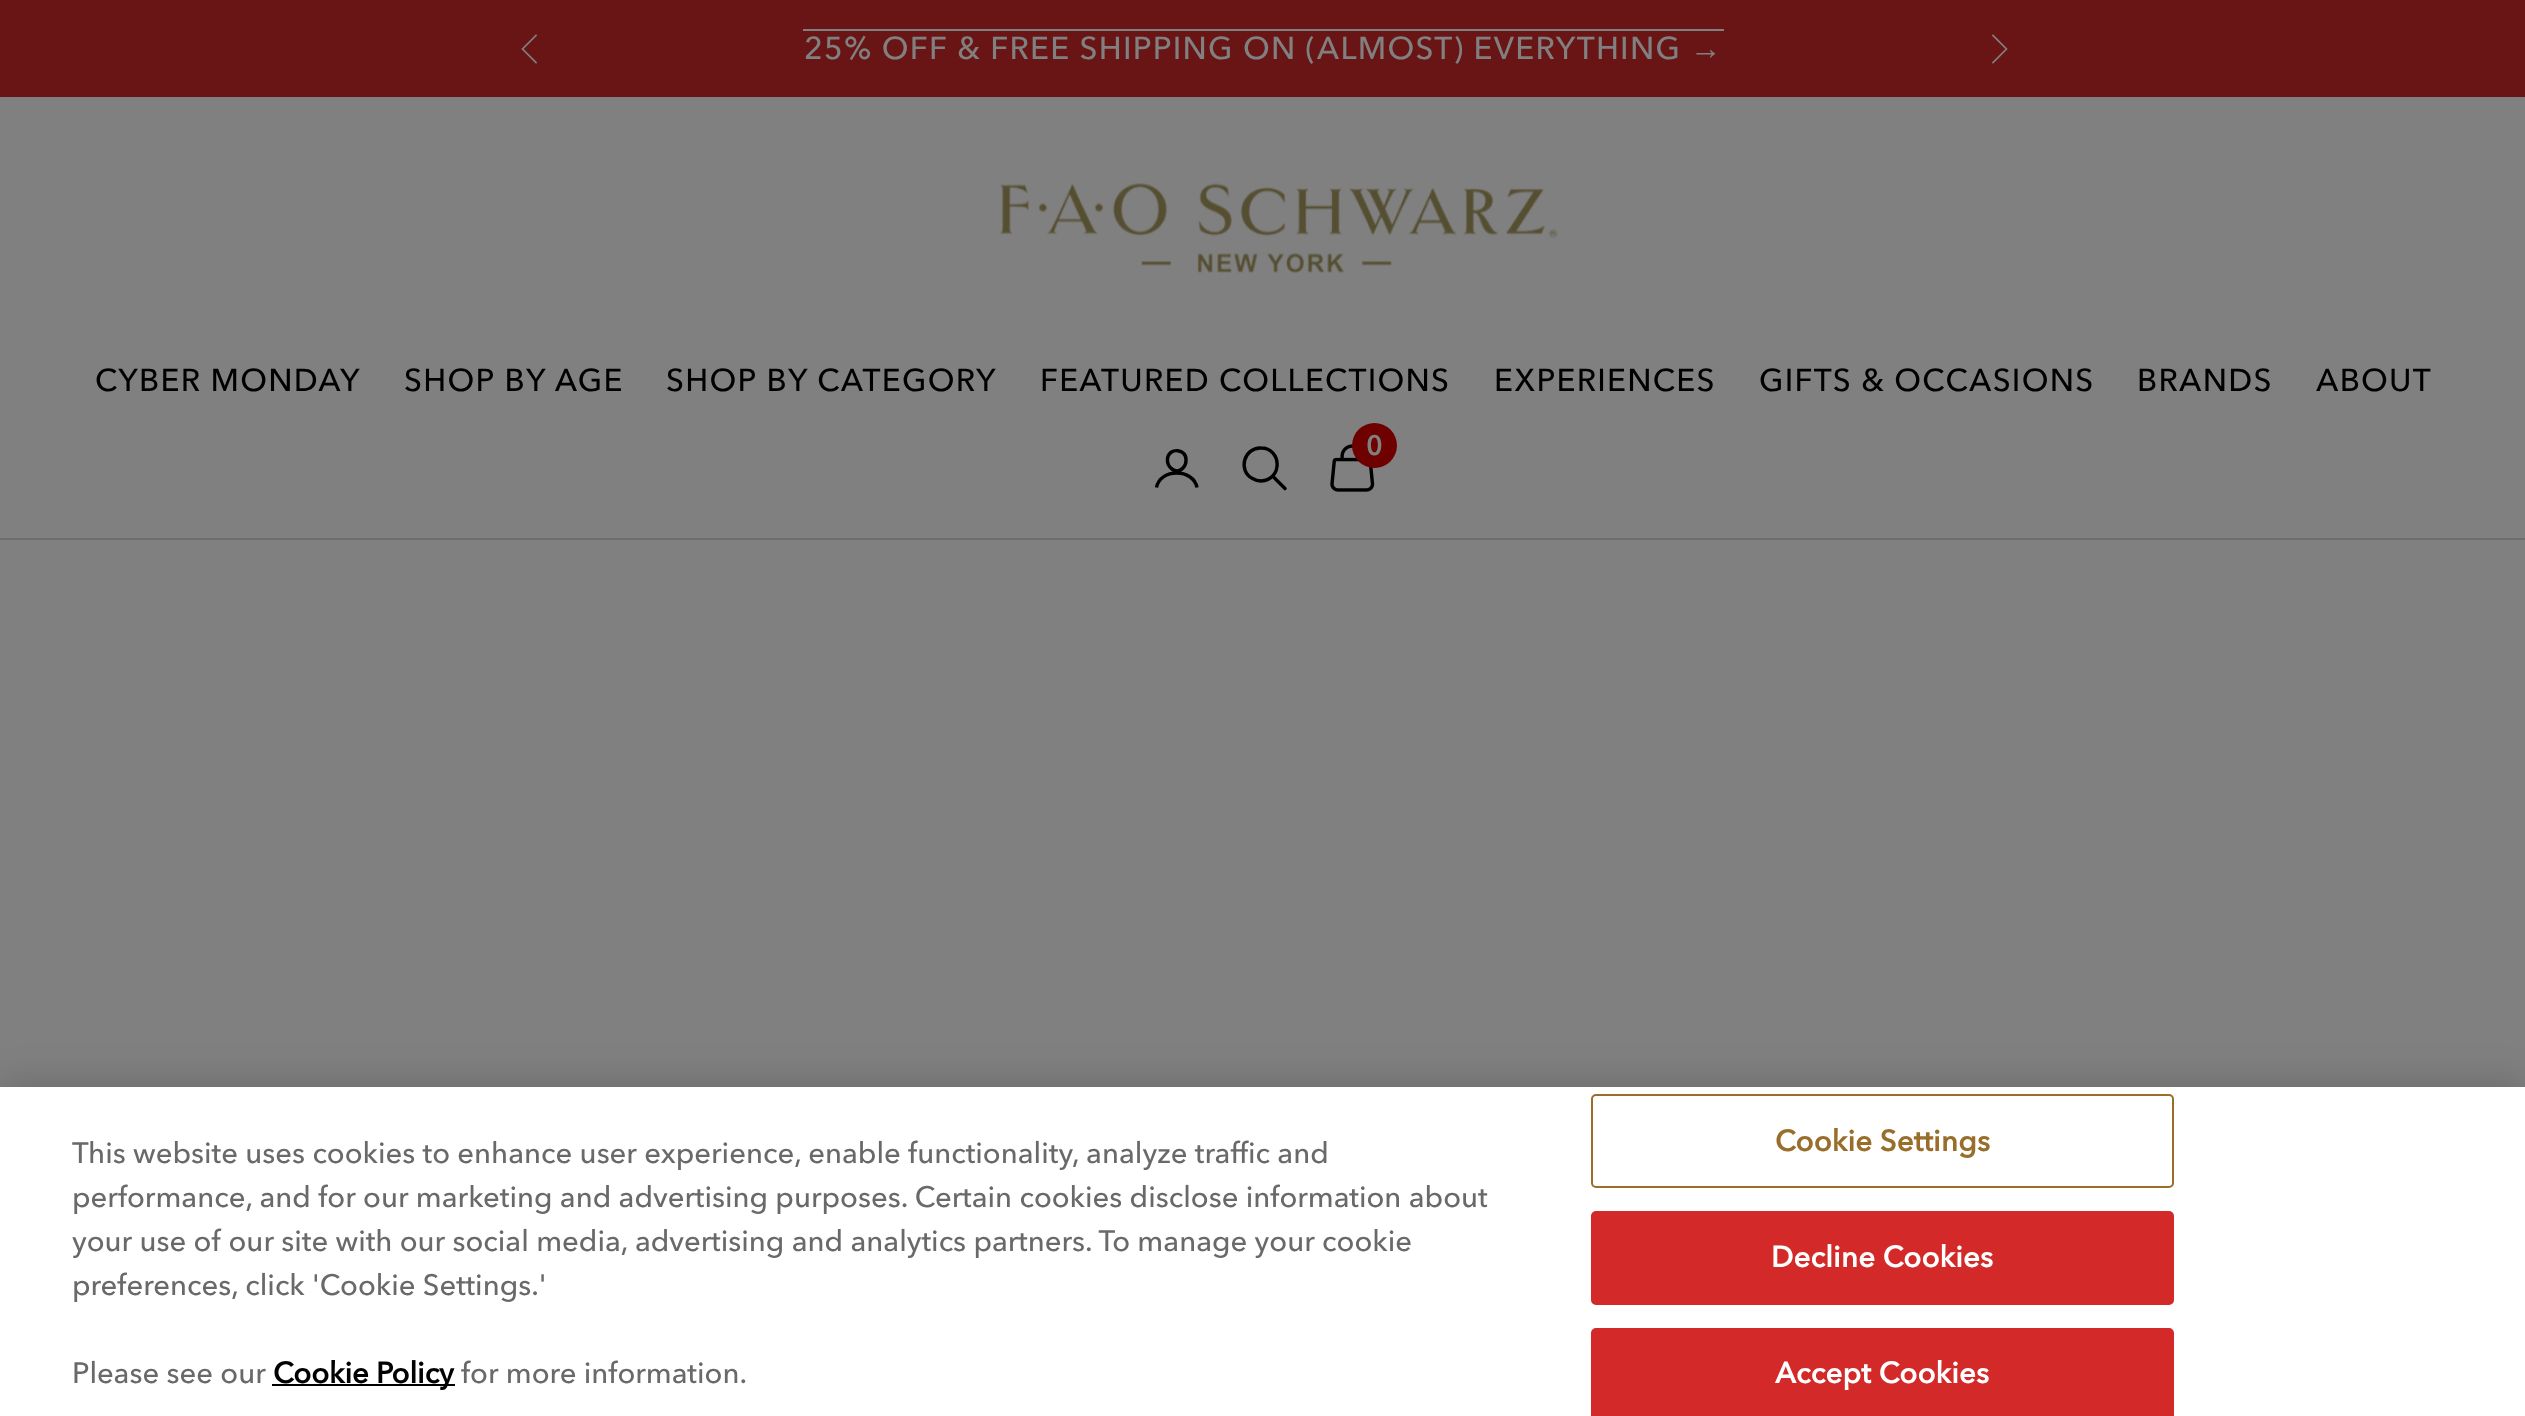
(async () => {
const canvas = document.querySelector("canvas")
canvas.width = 2525
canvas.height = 1416
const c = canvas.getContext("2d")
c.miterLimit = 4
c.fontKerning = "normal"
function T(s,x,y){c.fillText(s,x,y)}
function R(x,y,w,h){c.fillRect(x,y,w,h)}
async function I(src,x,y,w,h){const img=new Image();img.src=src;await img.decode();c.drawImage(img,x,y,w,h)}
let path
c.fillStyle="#808080"
R(0,0,2525,1416)
c.fillStyle="#6a1515"
R(0,0,2525,97)
path = new Path2D("M536 35.5l-13.5 13.5l13.5 13.5")
c.strokeStyle="#808080"
c.lineWidth=1.7
c.lineCap="square"
c.stroke(path)
c.letterSpacing="1.25px"
c.font="31.5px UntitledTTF"
c.fillStyle="#808080"
T("25% OFF & FREE SHIPPING ON (ALMOST) EVERYTHING",804,59)
R(803,29,921,2)
c.font="31.5px Liberation Sans"
T("→",1690,59)
path = new Path2D("M1993 62.5l13.5-13.5l-13.5-13.5")
c.stroke(path)
c.fillStyle="#6d6d6d"
R(0,538,2525,2)
await I("1.png",1000,183,558,91)
c.font="31.5px UntitledTTF"
c.fillStyle="#000"
T("CYBER MONDAY",95,391)
T("SHOP BY AGE",404,391)
T("SHOP BY CATEGORY",666,391)
T("FEATURED COLLECTIONS",1040,391)
T("EXPERIENCES",1494,391)
T("GIFTS & OCCASIONS",1759,391)
T("BRANDS",2137,391)
T("ABOUT",2316,391)
path = new Path2D("M1186 460.5c0 3-1 5.5-3 7.5c-7 7.5-16.5-1-15.5-9.5c1.5-11.5 19.5-10 18.5 2z")
c.strokeStyle="#000"
c.lineWidth=3.4
c.lineCap="round"
c.lineJoin="round"
c.stroke(path)
path = new Path2D("M1156.5 487.5c3.5-19.5 37-19 40.5 0")
c.lineCap="butt"
c.lineJoin="miter"
c.stroke(path)
path = new Path2D("M1261 448c-17-.5-23.5 22.5-8.5 30.5c2.5 1.5 5.5 2.5 8.5 2.5c22-1 21-33 0-33z")
c.stroke(path)
path = new Path2D("M1273 476.5l12 12")
c.lineCap="round"
c.stroke(path)
await I("2.png",1330,444,45,48)
c.fillStyle="#6f0000"
c.beginPath()
c.arc(1374.5,445.5,22.5,0,7)
c.fill()
c.letterSpacing="0px"
c.font="bold 27px UntitledTTF"
c.fillStyle="#808080"
T("0",1366,455)
c.fillStyle="#00000033"
c.filter="blur(20px)"
c.beginPath()
c.rect(0,1087,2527,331)
c.fill()
c.filter="none"
c.fillStyle="#fff"
R(0,1087,2525,329)
c.font="29.25px UntitledTTF"
c.fillStyle="#696969"
T("This website uses cookies to enhance user experience, enable functionality, analyze traffic and",72,1163)
T("performance, and for our marketing and advertising purposes. Certain cookies disclose information about",72,1207)
T("your use of our site with our social media, advertising and analytics partners. To manage your cookie",72,1251)
T("preferences, click 'Cookie Settings.'",72,1295)
T("Please see our",72,1383)
c.fillStyle="#000"
R(272,1384,183,2)
c.font="bold 29.25px UntitledTTF"
T("Cookie Policy",273,1383)
c.font="29.25px UntitledTTF"
c.fillStyle="#696969"
T("for more information.",461,1383)
c.beginPath()
c.roundRect(1592,1095,581,92,4)
c.strokeStyle="#986e2a"
c.lineWidth=2
c.stroke()
c.letterSpacing="0.25px"
c.font="bold 29.25px UntitledTTF"
c.fillStyle="#986e2a"
T("Cookie Settings",1775,1151)
c.fillStyle="#d32929"
c.beginPath()
c.roundRect(1592,1212,581,92,4)
c.fill()
c.strokeStyle="#d32929"
c.stroke()
c.fillStyle="#fff"
T("Decline Cookies",1771,1267)
c.fillStyle="#d32929"
c.beginPath()
c.roundRect(1592,1329,581,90,4)
c.fill()
c.stroke()
c.fillStyle="#fff"
T("Accept Cookies",1775,1383)
})()
